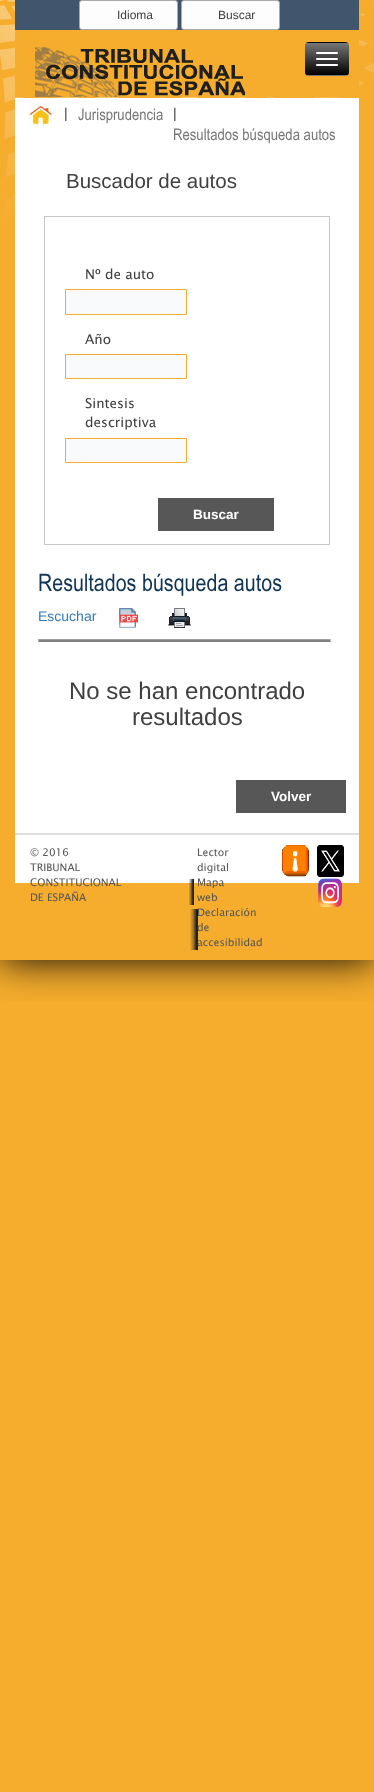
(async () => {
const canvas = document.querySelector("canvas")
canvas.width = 374
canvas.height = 1792
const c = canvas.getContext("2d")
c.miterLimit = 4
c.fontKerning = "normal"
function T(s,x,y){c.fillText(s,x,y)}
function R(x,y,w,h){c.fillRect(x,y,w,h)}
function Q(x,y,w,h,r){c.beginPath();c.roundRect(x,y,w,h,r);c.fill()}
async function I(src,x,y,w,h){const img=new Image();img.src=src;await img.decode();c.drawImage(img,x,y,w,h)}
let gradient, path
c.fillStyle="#f6ad2d"
R(0,0,374,1792)
await I("1.png",0,0,374,217)
c.save()
c.beginPath()
c.rect(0,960,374,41)
c.clip()
c.fillStyle="#000"
c.filter="blur(20px)"
c.beginPath()
c.rect(0,0,374,960)
c.fill()
c.filter="none"
c.restore()
R(15,30,344,67)
c.fillStyle="#41566c"
R(15,0,344,30)
c.fillStyle="#fdfdfd"
c.beginPath()
c.roundRect(79.5,.5,98,29,2.5)
c.fill()
c.strokeStyle="#ababab"
c.stroke()
c.font="12px Liberation Sans"
c.fillStyle="#404040"
T("Idioma",117,19)
c.fillStyle="#fdfdfd"
c.beginPath()
c.roundRect(181.5,.5,98,29,2.5)
c.fill()
c.stroke()
c.fillStyle="#404040"
T("Buscar",218,19)
await I("2.png",35,47,210,50)
c.save()
c.beginPath()
c.roundRect(305,42,44,34,4)
c.clip()
gradient = c.createLinearGradient(327,11,327,43)
gradient.addColorStop(0,"#777")
gradient.addColorStop(1,"#000")
c.fillStyle = gradient
R(305,42,44,1)
gradient = c.createLinearGradient(327,43,327,75)
gradient.addColorStop(0,"#777")
gradient.addColorStop(1,"#000")
c.fillStyle = gradient
R(305,43,44,32)
gradient = c.createLinearGradient(327,75,327,107)
gradient.addColorStop(0,"#777")
gradient.addColorStop(1,"#000")
c.fillStyle = gradient
R(305,75,44,1)
c.restore()
c.fillStyle="#fff"
Q(316,52,22,2,1)
Q(316,58,22,2,1)
Q(316,64,22,2,1)
R(15,98,344,785)
await I("3.png",28,103,24,24)
c.font="14px Liberation Sans"
c.fillStyle="#404040"
T("|",64,118)
c.font="16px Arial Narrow"
c.fillStyle="#777"
T("Jurisprudencia",78,120)
c.font="14px Liberation Sans"
c.fillStyle="#404040"
T("|",173,118)
c.font="16px Arial Narrow"
c.fillStyle="#777"
T("Resultados búsqueda autos",173,140)
c.font="20.5px Liberation Sans"
c.fillStyle="#404040"
T("Buscador de autos",66,188)
c.strokeStyle="#c6c6c6"
c.strokeRect(44.5,216.5,285,328)
c.font="13.5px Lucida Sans"
T("Nº de auto",85,279)
c.fillStyle="#f9fafb"
c.beginPath()
c.rect(65.5,289.5,121,25)
c.fill()
c.strokeStyle="#f6ac2c"
c.stroke()
c.fillStyle="#404040"
T("Año",85,344)
c.fillStyle="#f9fafb"
c.beginPath()
c.rect(65.5,354.5,121,24)
c.fill()
c.stroke()
c.fillStyle="#404040"
T("Sintesis",85,408)
T("descriptiva",85,427)
c.fillStyle="#f9fafb"
c.beginPath()
c.rect(65.5,438.5,121,24)
c.fill()
c.stroke()
c.fillStyle="#585757"
R(158,498,116,33)
c.font="bold 13.5px Liberation Sans"
c.fillStyle="#fff"
T("Buscar",193,519)
c.font="24px Arial Narrow"
c.fillStyle="#113655"
T("Resultados búsqueda autos",38,591)
c.font="14px Liberation Sans"
c.fillStyle="#337ab7"
T("Escuchar",38,621)
await I("4.png",119,608,19,20)
await I("5.png",168,608,23,20)
c.fillStyle="#9f9f9f"
R(38,639,293,1)
c.fillStyle="#eee"
path = new Path2D("M331 639v3l-1-2z")
c.fill(path)
c.fillStyle="#808080"
path = new Path2D("M331 642h-293l1-2h291z")
c.fill(path)
c.fillStyle="#9f9f9f"
path = new Path2D("M38 642v-3l1 1z")
c.fill(path)
c.font="24px Liberation Sans"
c.fillStyle="#404040"
T("No se han encontrado",69,699)
T("resultados",132,725)
c.fillStyle="#585757"
R(236,780,110,33)
c.font="bold 13.5px Liberation Sans"
c.fillStyle="#fff"
T("Volver",271,801)
c.fillStyle="#dedede"
R(15,833,344,2)
c.font="10.5px Lucida Sans"
c.fillStyle="#555"
T("© 2016",30,856)
T("TRIBUNAL",30,871)
T("CONSTITUCIONAL",30,886)
T("DE ESPAÑA",30,901)
T("Lector",197,856)
T("digital",197,871)
await I("6.png",189,879,5,26)
T("Mapa",197,886)
T("web",197,901)
await I("7.png",190,909,8,41)
T("Declaración",197,916)
T("de",197,931)
T("accesibilidad",197,946)
await I("8.png",282,845,27,32)
await I("9.png",317,845,27,32)
await I("10.png",318,878,24,29)
})()
